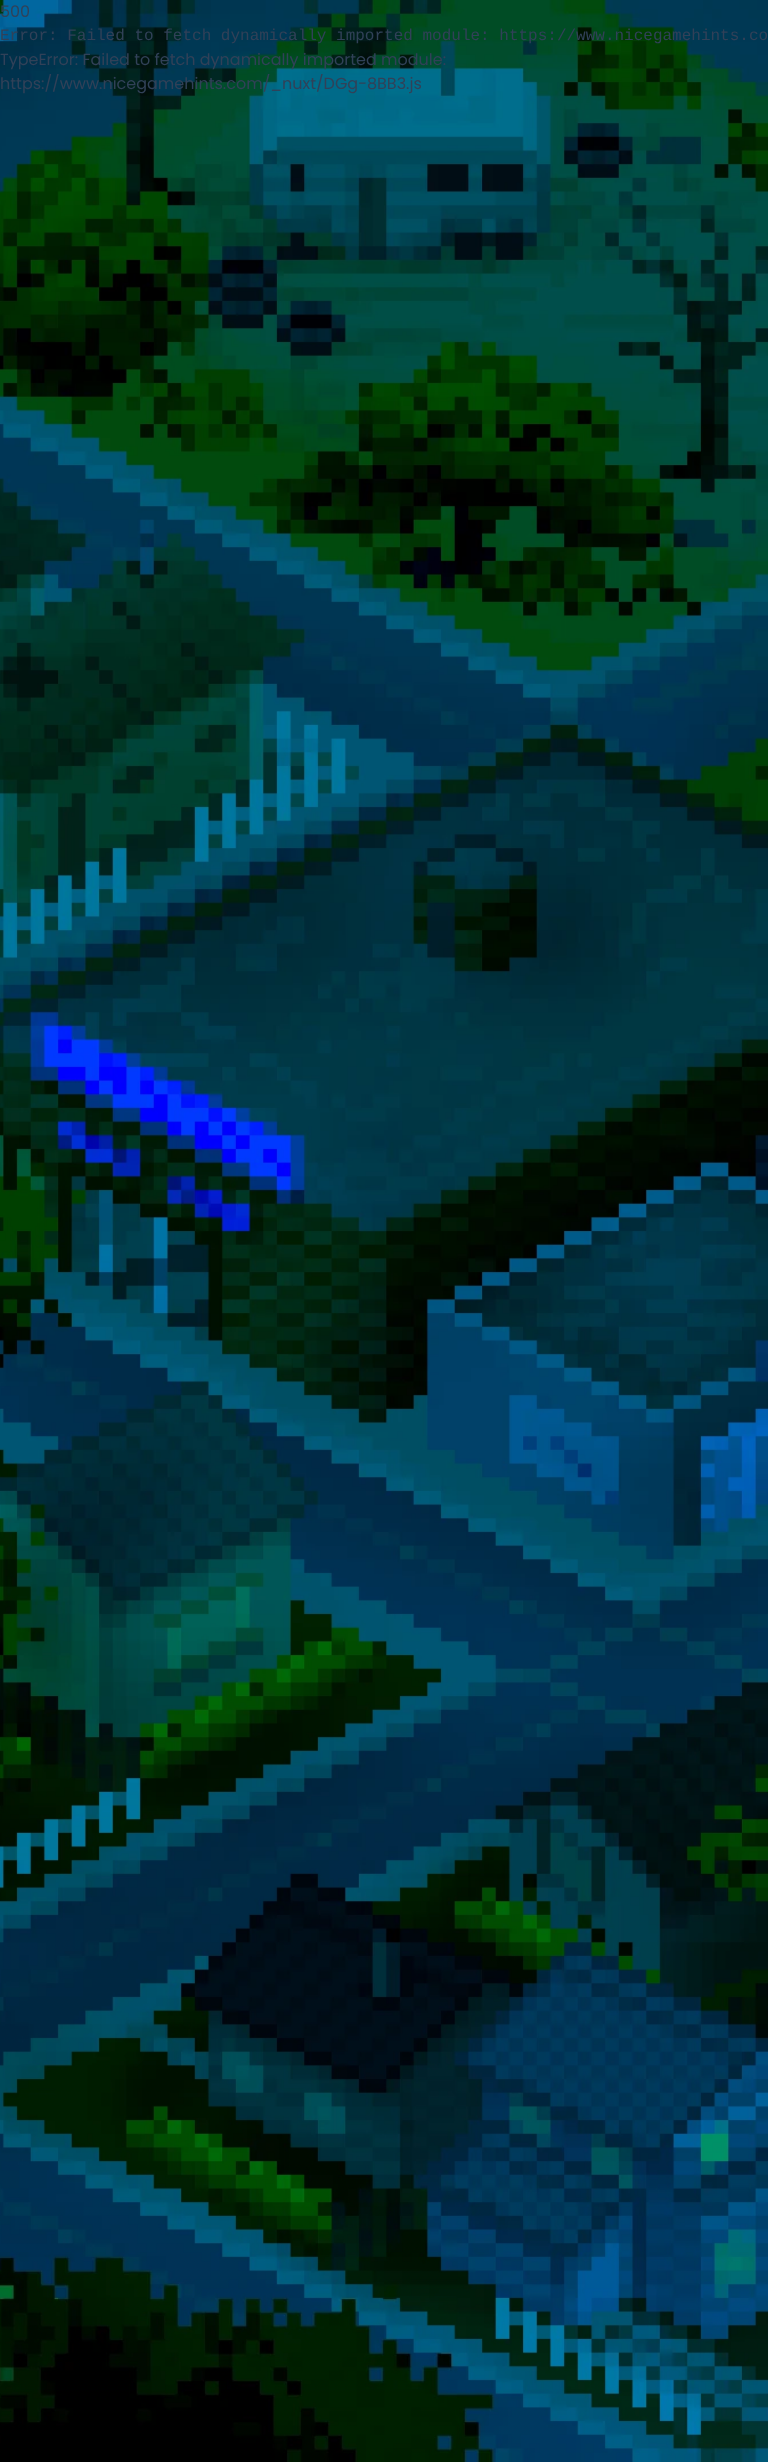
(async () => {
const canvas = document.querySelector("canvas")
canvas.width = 768
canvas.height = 2462
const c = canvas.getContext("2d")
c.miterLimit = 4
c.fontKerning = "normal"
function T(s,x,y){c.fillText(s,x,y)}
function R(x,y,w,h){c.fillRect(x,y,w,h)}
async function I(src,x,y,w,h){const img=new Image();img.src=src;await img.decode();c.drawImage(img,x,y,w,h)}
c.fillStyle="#fff"
R(0,0,768,2462)
await I("1.png",0,0,768,2462)
c.font="16px Poppins"
c.fillStyle="#314158"
T("500",0,17)
c.font="16px Liberation Mono"
T("Error: Failed to fetch dynamically imported module: https://www.nicegamehints.co",0,40)
c.font="16px Poppins"
T("TypeError: Failed to fetch dynamically imported module:",0,65)
T("https://www.nicegamehints.com/_nuxt/DGg-8BB3.js",0,89)
})()
